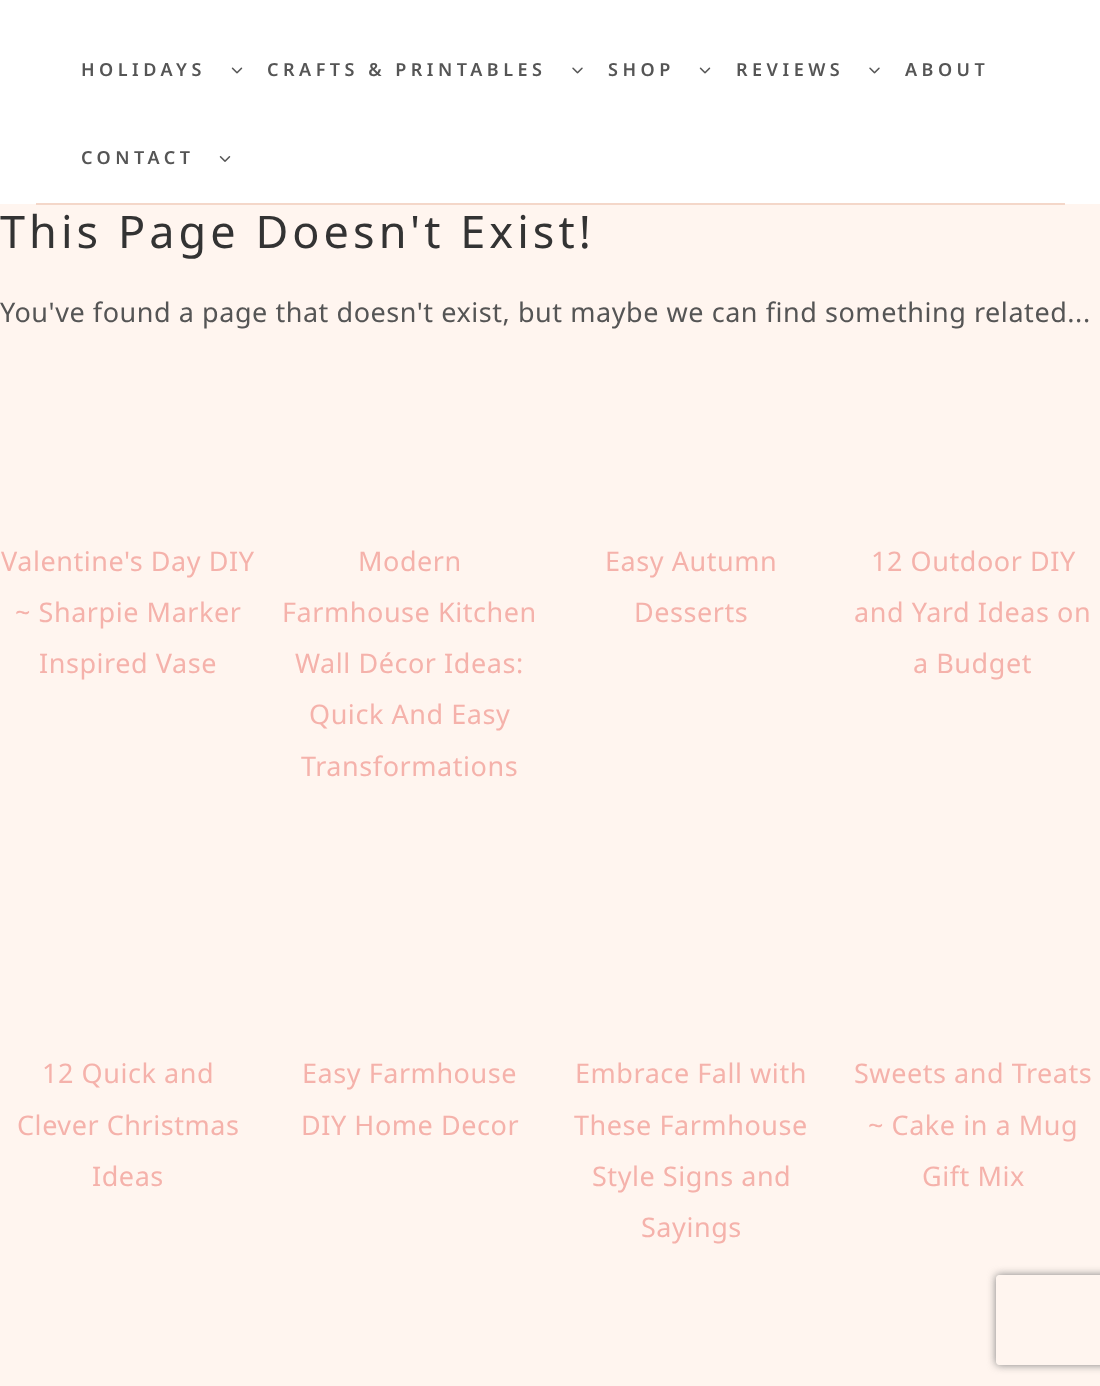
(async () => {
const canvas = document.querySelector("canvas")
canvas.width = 1100
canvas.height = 1386
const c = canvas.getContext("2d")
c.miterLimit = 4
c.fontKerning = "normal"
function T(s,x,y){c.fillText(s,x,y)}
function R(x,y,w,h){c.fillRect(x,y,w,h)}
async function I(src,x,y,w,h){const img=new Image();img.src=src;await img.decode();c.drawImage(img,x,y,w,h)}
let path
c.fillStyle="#fff5ef"
R(0,0,1100,1386)
c.fillStyle="#fff"
R(0,0,1100,204)
c.fillStyle="#f4d7c9"
R(36,203,1029,2)
c.letterSpacing="4.5px"
c.font="600 18px Noto Sans"
c.fillStyle="#555"
T("HOLIDAYS",81,76)
await I("1.png",231,67,12,7)
T("CRAFTS & PRINTABLES",267,76)
await I("2.png",572,67,11,7)
T("SHOP",608,76)
await I("1.png",699,67,12,7)
T("REVIEWS",736,76)
await I("2.png",869,67,11,7)
T("ABOUT",905,76)
T("CONTACT",81,164)
await I("3.png",219,156,12,6)
c.letterSpacing="4.05px"
c.font="45px Noto Sans"
c.fillStyle="#333"
T("This Page Doesn't Exist!",0,248)
c.letterSpacing="0.55px"
c.font="27px Noto Sans"
c.fillStyle="#555"
T("You've found a page that doesn't exist, but maybe we can find something related...",0,322)
c.fillStyle="#f5b2ab"
T("Valentine's Day DIY",1,571)
T("~ Sharpie Marker",15,622)
T("Inspired Vase",39,673)
T("Modern",358,571)
T("Farmhouse Kitchen",282,622)
T("Wall Décor Ideas:",295,673)
T("Quick And Easy",309,724)
T("Transformations",301,776)
T("Easy Autumn",605,571)
T("Desserts",634,622)
T("12 Outdoor DIY",871,571)
T("and Yard Ideas on",854,622)
T("a Budget",913,673)
T("12 Quick and",42,1083)
T("Clever Christmas",17,1135)
T("Ideas",92,1186)
T("Easy Farmhouse",302,1083)
T("DIY Home Decor",301,1135)
T("Embrace Fall with",575,1083)
T("These Farmhouse",574,1135)
T("Style Signs and",592,1186)
T("Sayings",641,1237)
T("Sweets and Treats",854,1083)
T("~ Cake in a Mug",868,1135)
T("Gift Mix",922,1186)
c.save()
path = new Path2D("M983 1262h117v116h-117zm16 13h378c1.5 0 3 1.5 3 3v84c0 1.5-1.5 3-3 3h-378c-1.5 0-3-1.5-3-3v-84c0-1.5 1.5-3 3-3z")
c.clip(path,"evenodd")
c.fillStyle="#808080"
c.filter="blur(4px)"
c.beginPath()
c.roundRect(996,1275,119,90,3)
c.fill()
c.filter="none"
c.restore()
})()
